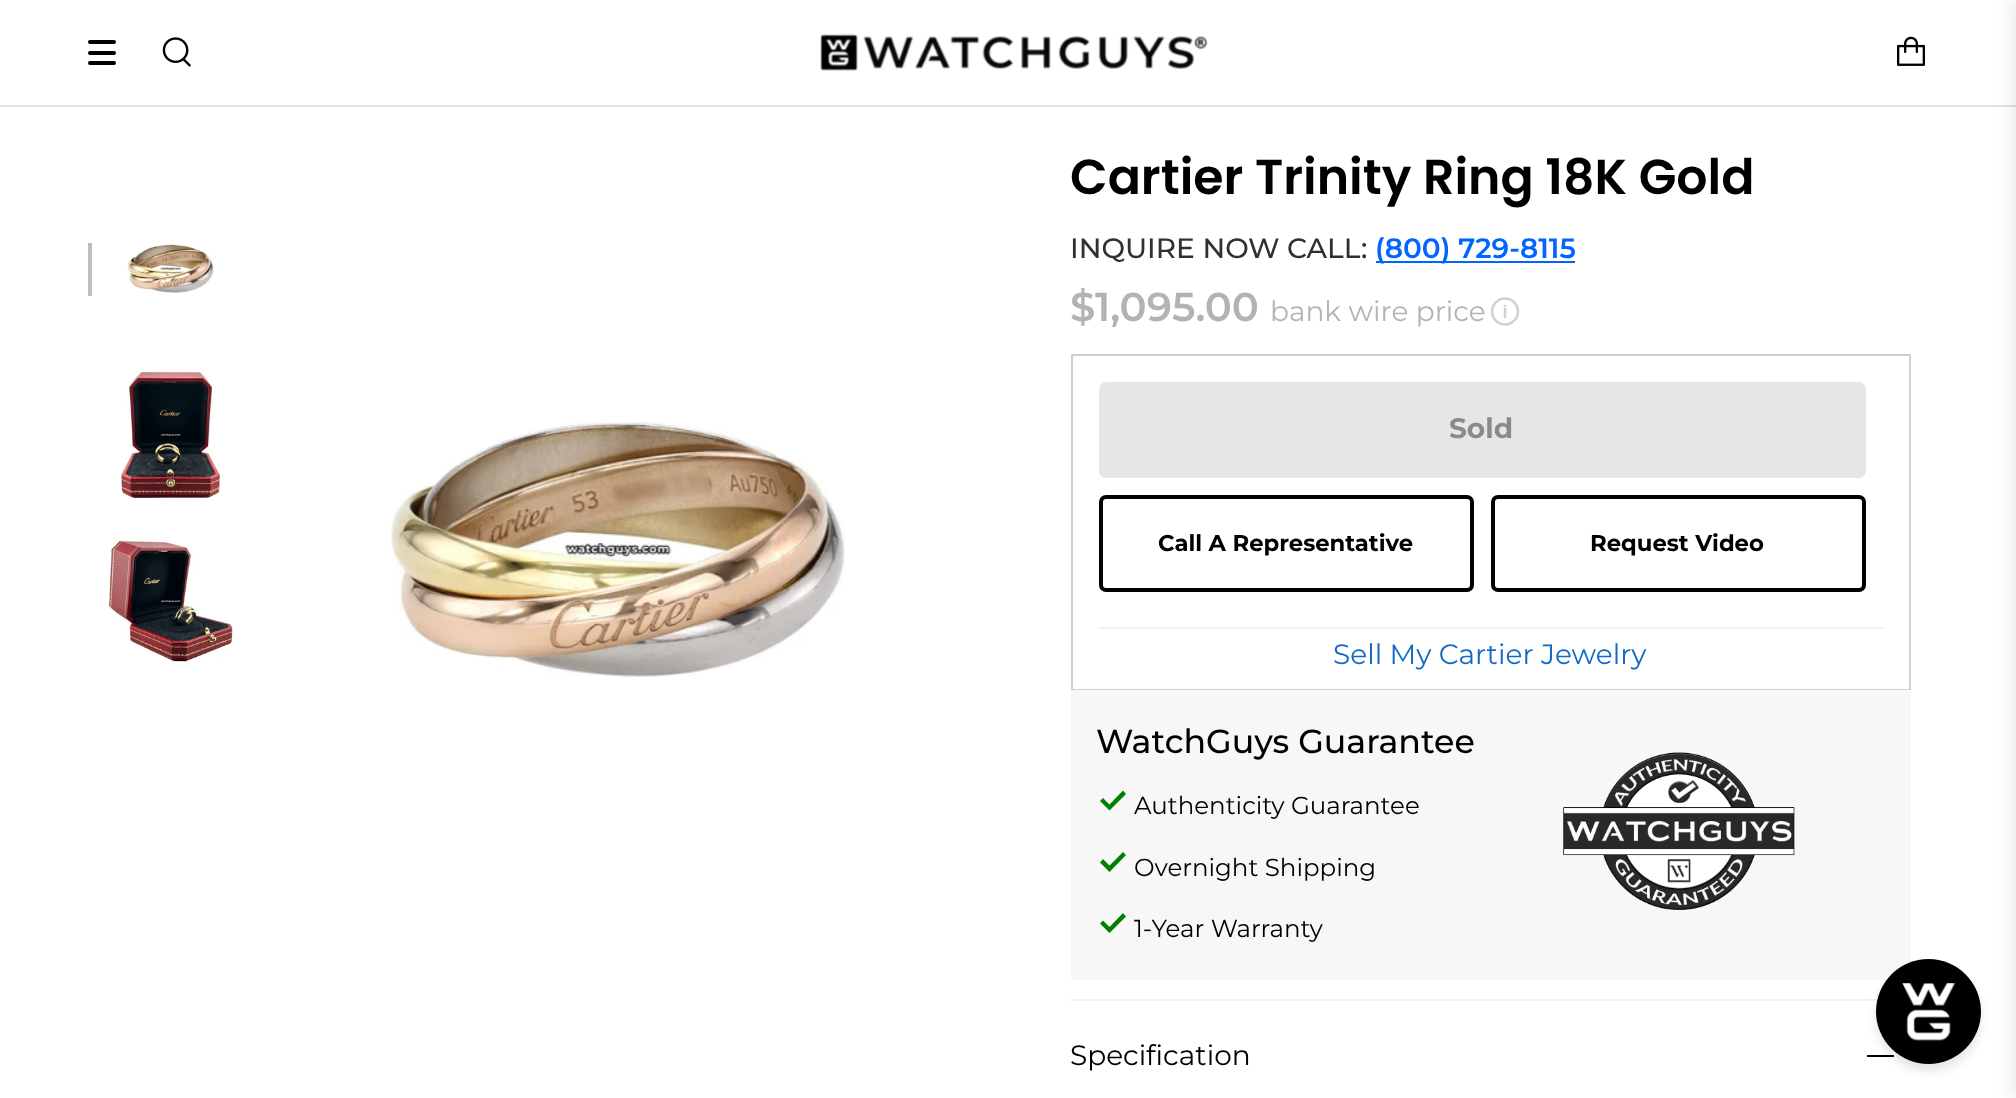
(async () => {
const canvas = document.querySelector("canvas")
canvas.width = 2016
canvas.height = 1098
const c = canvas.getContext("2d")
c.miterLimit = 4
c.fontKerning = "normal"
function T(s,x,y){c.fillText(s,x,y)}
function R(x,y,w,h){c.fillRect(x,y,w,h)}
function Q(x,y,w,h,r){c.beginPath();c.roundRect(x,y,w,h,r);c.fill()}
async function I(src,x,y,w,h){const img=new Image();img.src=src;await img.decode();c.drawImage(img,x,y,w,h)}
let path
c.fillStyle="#fff"
R(0,0,2016,1098)
c.fillStyle="#e2e2e2"
R(0,105,2016,2)
c.fillStyle="#000"
Q(88,40,28,4,2)
Q(88,51,28,4,2)
Q(88,61,28,4,2)
await I("1.png",162,37,29,30)
await I("2.png",820,34,388,37)
await I("3.png",1897,36,28,30)
c.fillStyle="#bdbdbd"
R(88,243,4,53)
await I("4.png",127,244,87,49)
await I("5.png",121,371,100,130)
await I("6.png",108,540,126,123)
await I("7.png",391,420,455,258)
c.font="600 49px Poppins"
c.fillStyle="#000"
T("Cartier Trinity Ring 18K Gold",1070,194)
c.font="500 28px Montserrat"
c.fillStyle="#303030"
T("INQUIRE NOW CALL:",1070,258)
c.fillStyle="#06f"
R(1376,261,199,2)
c.font="600 28px Montserrat"
T("(800) 729-8115",1375,258)
c.font="600 40.25px Montserrat"
c.fillStyle="#b3b3b3"
T("$1,095.00",1070,321)
c.font="28px Montserrat"
T("bank wire price",1270,321)
c.beginPath()
c.arc(1505,311.5,13,0,7)
c.strokeStyle="#d1d1d1"
c.lineWidth=2.6
c.stroke()
path = new Path2D("M1505 306h0m0 3v8")
c.lineCap="round"
c.stroke(path)
c.strokeStyle="#cfcfcf"
c.lineWidth=2
c.strokeRect(1072,355,838,335)
c.fillStyle="#e6e6e6"
Q(1099,382,767,96,7)
c.font="bold 28px Montserrat"
c.fillStyle="#8a8a8a"
T("Sold",1449,438)
c.beginPath()
c.roundRect(1101,497,371,93,5)
c.strokeStyle="#000"
c.lineWidth=4
c.stroke()
c.font="bold 22.75px Montserrat"
c.fillStyle="#000"
T("Call A Representative",1158,551)
c.beginPath()
c.roundRect(1493,497,371,93,5)
c.stroke()
T("Request Video",1590,551)
c.fillStyle="#f0f0f0"
R(1099,627,784,2)
c.font="28px Montserrat"
c.fillStyle="#136ac5"
T("Sell My Cartier Jewelry",1333,664)
c.fillStyle="#f7f7f7"
R(1071,690,840,290)
c.font="500 33.25px Montserrat"
c.fillStyle="#000"
T("WatchGuys Guarantee",1096,753)
c.fillStyle="#008000"
path = new Path2D("M1109.5 810.5l-9.5-9.5l3-3l6.5 6.5l13.5-14l3 3.5z")
c.fill(path)
c.font="24.5px Montserrat"
c.fillStyle="#000"
T("Authenticity Guarantee",1134,814)
c.fillStyle="#008000"
path = new Path2D("M1109.5 872l-9.5-9.5l3-3.5l6.5 6.5l13.5-13.5l3 3z")
c.fill(path)
c.fillStyle="#000"
T("Overnight Shipping",1134,876)
c.fillStyle="#008000"
path = new Path2D("M1109.5 933l-9.5-9.5l3-3l6.5 6.5l13.5-14l3 3.5z")
c.fill(path)
c.fillStyle="#000"
T("1-Year Warranty",1134,937)
await I("8.png",1563,752,232,158)
c.fillStyle="#f0f0f0"
R(1071,999,807,2)
c.font="28px Montserrat"
c.fillStyle="#000"
T("Specification",1070,1065)
R(1867,1055,27,2)
c.fillStyle="#0000001a"
c.filter="blur(5px)"
c.beginPath()
c.roundRect(1876,966,105,105,52.5)
c.fill()
c.filter="none"
c.fillStyle="#000"
c.beginPath()
c.arc(1928.5,1011.5,52.5,0,7)
c.fill()
await I("9.png",1902,983,54,58)
c.fillStyle="#0000001a"
c.filter="blur(9px)"
c.beginPath()
c.rect(2013,0,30,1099)
c.fill()
c.filter="none"
})()
